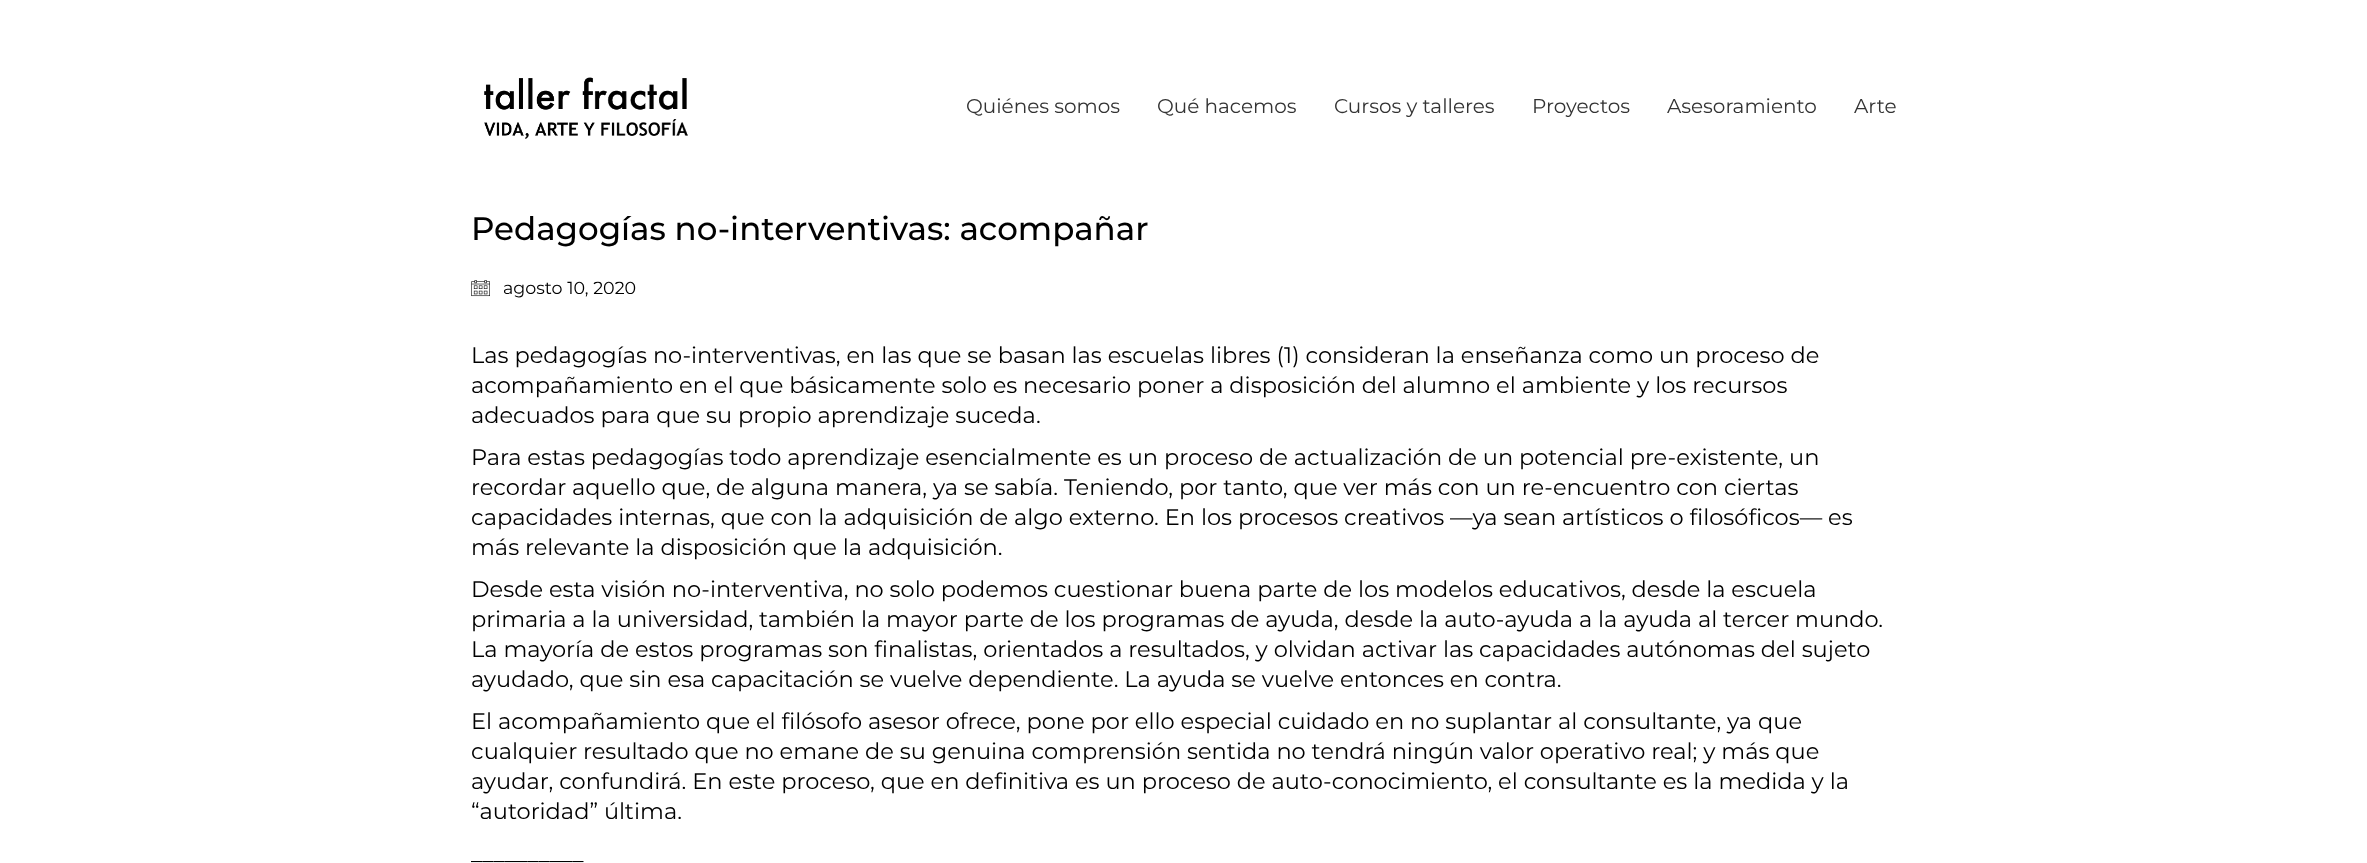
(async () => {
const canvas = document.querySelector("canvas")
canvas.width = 2367
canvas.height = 863
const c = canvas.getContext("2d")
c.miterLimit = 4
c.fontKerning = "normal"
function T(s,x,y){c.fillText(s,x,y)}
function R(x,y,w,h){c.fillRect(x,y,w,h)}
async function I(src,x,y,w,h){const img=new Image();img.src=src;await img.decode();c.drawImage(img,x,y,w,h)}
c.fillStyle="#fff"
R(0,0,2367,863)
await I("1.png",484,77,204,62)
c.font="20px Montserrat"
c.fillStyle="#333"
T("Quiénes somos",966,113)
T("Qué hacemos",1157,113)
T("Cursos y talleres",1334,113)
T("Proyectos",1532,113)
T("Asesoramiento",1667,113)
T("Arte",1854,113)
c.font="500 32.5px Montserrat"
c.fillStyle="#000"
T("Pedagogías no-interventivas: acompañar",471,240)
await I("2.png",471,280,19,17)
c.font="17.5px Montserrat"
T("agosto 10, 2020",503,294)
c.font="22.5px Montserrat"
T("Las pedagogías no-interventivas, en las que se basan las escuelas libres (1) consideran la enseñanza como un proceso de",471,363)
T("acompañamiento en el que básicamente solo es necesario poner a disposición del alumno el ambiente y los recursos",471,393)
T("adecuados para que su propio aprendizaje suceda.",471,423)
T("Para estas pedagogías todo aprendizaje esencialmente es un proceso de actualización de un potencial pre-existente, un",471,465)
T("recordar aquello que, de alguna manera, ya se sabía. Teniendo, por tanto, que ver más con un re-encuentro con ciertas",471,495)
T("capacidades internas, que con la adquisición de algo externo. En los procesos creativos —ya sean artísticos o filosóficos— es",471,525)
T("más relevante la disposición que la adquisición.",471,555)
T("Desde esta visión no-interventiva, no solo podemos cuestionar buena parte de los modelos educativos, desde la escuela",471,597)
T("primaria a la universidad, también la mayor parte de los programas de ayuda, desde la auto-ayuda a la ayuda al tercer mundo.",471,627)
T("La mayoría de estos programas son finalistas, orientados a resultados, y olvidan activar las capacidades autónomas del sujeto",471,657)
T("ayudado, que sin esa capacitación se vuelve dependiente. La ayuda se vuelve entonces en contra.",471,687)
T("El acompañamiento que el filósofo asesor ofrece, pone por ello especial cuidado en no suplantar al consultante, ya que",471,729)
T("cualquier resultado que no emane de su genuina comprensión sentida no tendrá ningún valor operativo real; y más que",471,759)
T("ayudar, confundirá. En este proceso, que en definitiva es un proceso de auto-conocimiento, el consultante es la medida y la",471,789)
T("“autoridad” última.",471,819)
T("__________",471,861)
})()
